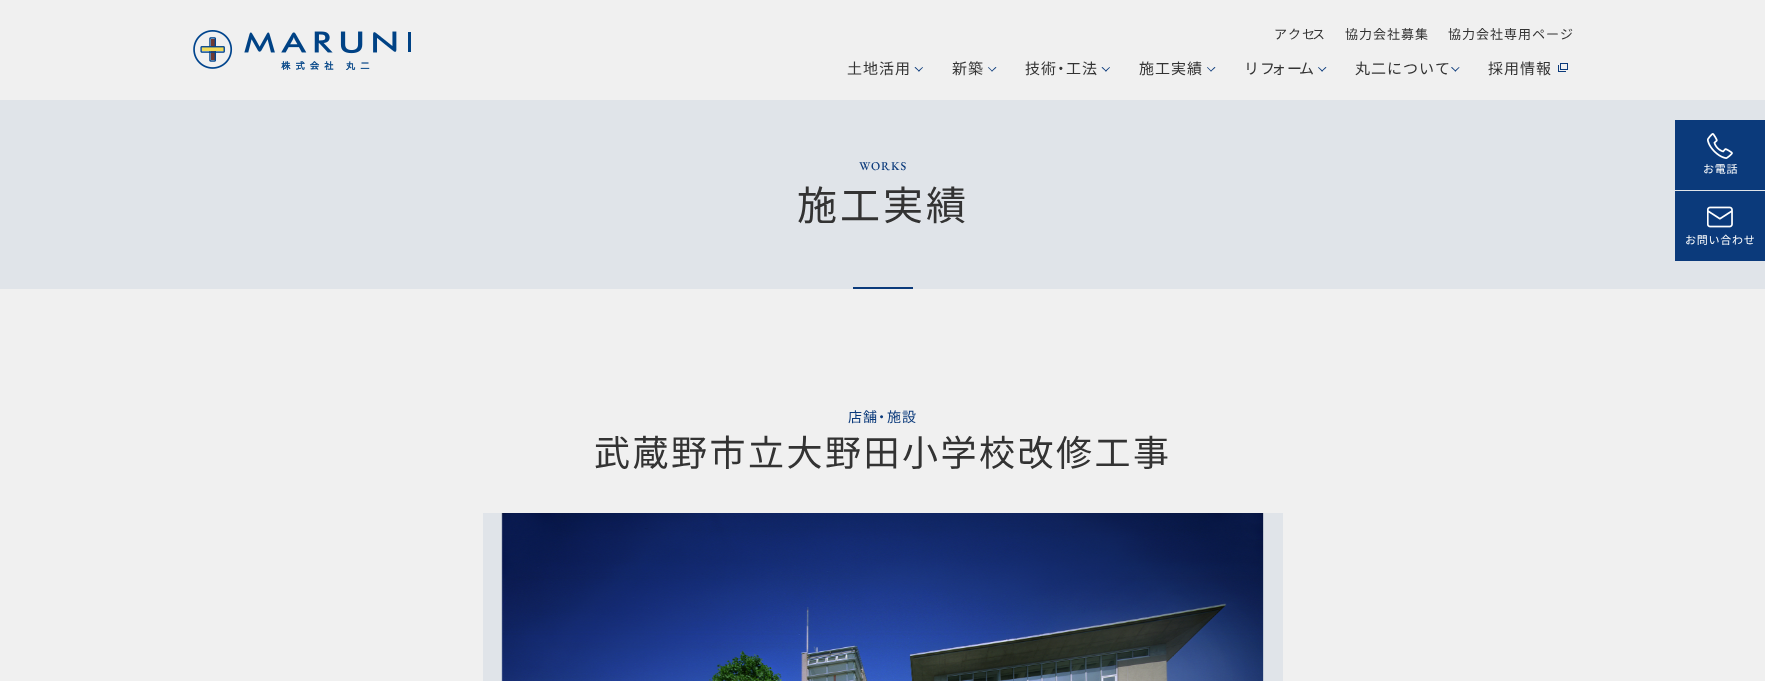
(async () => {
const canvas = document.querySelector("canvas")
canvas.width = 1765
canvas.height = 681
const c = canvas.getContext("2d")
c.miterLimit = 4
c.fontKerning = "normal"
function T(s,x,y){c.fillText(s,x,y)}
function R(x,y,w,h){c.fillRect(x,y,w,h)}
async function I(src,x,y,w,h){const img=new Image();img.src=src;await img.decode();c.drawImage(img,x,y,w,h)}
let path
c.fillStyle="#f0f0f0"
R(0,0,1765,681)
await I("1.png",193,30,218,40)
c.letterSpacing="1px"
c.font="13px Noto Sans JP"
c.fillStyle="#333"
T("アクセ",1274,39)
T("ス",1312,39)
T("協力会社募集",1345,39)
T("協力会社専用ページ",1448,39)
c.font="15px Noto Sans JP"
T("土地活用",847,74)
c.fillStyle="#0b3a7b"
path = new Path2D("M922.5 67l.5 .5l-4 4l-1-.5z")
c.fill(path)
path = new Path2D("M915.5 67l4 4l-.5 .5l-4.5-4z")
c.fill(path)
c.fillStyle="#333"
T("新築",952,74)
c.fillStyle="#0b3a7b"
path = new Path2D("M995.5 67l1 .5l-4.5 4l-.5-.5z")
c.fill(path)
path = new Path2D("M988.5 67l4 4l-.5 .5l-4-4z")
c.fill(path)
c.fillStyle="#333"
T("技術",1025,74)
c.font="15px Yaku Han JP"
T("・",1057,74)
c.font="15px Noto Sans JP"
T("工法",1066,74)
c.fillStyle="#0b3a7b"
path = new Path2D("M1109.5 67l.5 .5l-4 4l-1-.5z")
c.fill(path)
path = new Path2D("M1102.5 67l4 4l-.5 .5l-4.5-4z")
c.fill(path)
c.fillStyle="#333"
T("施工実績",1139,74)
c.fillStyle="#0b3a7b"
path = new Path2D("M1214.5 67l1 .5l-4.5 4l-.5-.5z")
c.fill(path)
path = new Path2D("M1207.5 67l4 4l-.5 .5l-4-4z")
c.fill(path)
c.fillStyle="#333"
T("リフ",1244,74)
T("ォー",1271,74)
T("ム",1299,74)
c.fillStyle="#0b3a7b"
path = new Path2D("M1325.5 67l1 .5l-4.5 4l-.5-.5z")
c.fill(path)
path = new Path2D("M1318.5 67l4.5 4l-1 .5l-4-4z")
c.fill(path)
c.fillStyle="#333"
T("丸二について",1355,74)
c.fillStyle="#0b3a7b"
path = new Path2D("M1459 67l.5 .5l-4 4l-1-.5z")
c.fill(path)
path = new Path2D("M1452 67l4 4l-.5 .5l-4.5-4z")
c.fill(path)
c.fillStyle="#333"
T("採用情報",1488,74)
c.strokeStyle="#0b3a7b"
c.strokeRect(1560.5,63.5,7,6)
c.fillStyle="#0b3a7b"
R(1558,71,8,1)
R(1558,65,1,7)
c.fillStyle="#e0e4e9"
R(0,100,1765,189)
c.fillStyle="#0b3a7b"
R(1675,120,90,70)
await I("2.png",1707,133,26,26)
c.letterSpacing="0.75px"
c.font="11px Noto Sans JP"
c.fillStyle="#fff"
T("お電話",1703,173)
c.fillStyle="#0b3a7b"
R(1675,191,90,70)
await I("3.png",1707,206,26,22)
c.fillStyle="#fff"
T("お問い合わせ",1685,244)
c.letterSpacing="1px"
c.font="500 12px EB Garamond"
c.fillStyle="#0b3a7b"
T("WORKS",859,170)
c.letterSpacing="3px"
c.font="40px Noto Sans JP"
c.fillStyle="#333"
T("施工実績",797,220)
c.fillStyle="#0b3a7b"
R(853,287,60,2)
c.letterSpacing="1px"
c.font="14px Noto Sans JP"
T("店舗",848,422)
c.font="14px Yaku Han JP"
T("・",878,422)
c.font="14px Noto Sans JP"
T("施設",887,422)
c.letterSpacing="2.5px"
c.font="36px Noto Sans JP"
c.fillStyle="#333"
T("武蔵野市立大野田小学校改修工事",594,466)
c.fillStyle="#e0e4e9"
R(483,513,800,168)
await I("4.png",501,513,763,168)
})()
